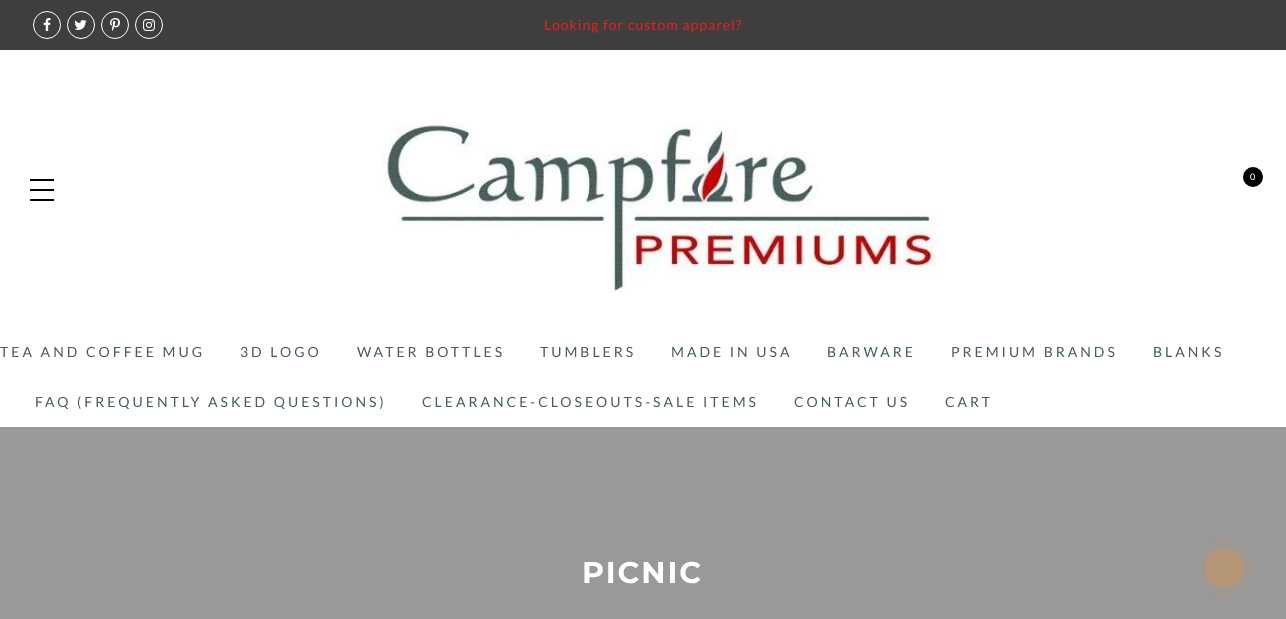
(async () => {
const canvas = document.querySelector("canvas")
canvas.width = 1286
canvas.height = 619
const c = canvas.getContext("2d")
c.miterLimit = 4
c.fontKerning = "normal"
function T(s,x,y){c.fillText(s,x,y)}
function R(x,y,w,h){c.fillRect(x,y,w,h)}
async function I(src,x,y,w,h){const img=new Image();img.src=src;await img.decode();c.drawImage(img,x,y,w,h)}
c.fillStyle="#fff"
R(0,0,1286,619)
c.fillStyle="#3e3e3e"
R(0,0,1286,50)
c.beginPath()
c.arc(47,25,13.5,0,7)
c.strokeStyle="#fff"
c.stroke()
await I("1.png",43,18,8,13)
c.beginPath()
c.arc(81,25,13.5,0,7)
c.stroke()
await I("2.png",74,20,13,10)
c.beginPath()
c.arc(115,25,13.5,0,7)
c.stroke()
await I("3.png",110,18,10,13)
c.beginPath()
c.arc(149,25,13.5,0,7)
c.stroke()
await I("4.png",143,19,12,12)
c.letterSpacing="1px"
c.font="14px Lato"
c.fillStyle="#e92020"
T("Looking for custom apparel?",544,30)
await I("5.png",382,124,555,170)
c.fillStyle="#000"
c.beginPath()
c.arc(1253,177,10,0,7)
c.fill()
c.font="9px Lato"
c.fillStyle="#fff"
T("0",1250,180)
c.fillStyle="#000"
R(30,179,24,2)
R(30,189,24,2)
R(30,199,24,2)
c.letterSpacing="3px"
c.font="14px Lato"
c.fillStyle="#475c5d"
T("TEA AND COFFEE MUG",0,357)
T("3D LOGO",240,357)
T("WATER BOTTLES",357,357)
T("TUMBLERS",540,357)
T("MADE IN USA",671,357)
T("BARWARE",827,357)
T("PREMIUM BRANDS",951,357)
T("BLANKS",1153,357)
T("FAQ (FREQUENTLY ASKED QUESTIONS)",35,407)
T("CLEARANCE-CLOSEOUTS-SALE ITEMS",422,407)
T("CONTACT US",794,407)
T("CART",945,407)
c.fillStyle="#999"
R(0,427,1286,192)
c.letterSpacing="2px"
c.font="bold 30px Montserrat"
c.fillStyle="#fff"
T("PICNIC",582,583)
c.beginPath()
c.arc(1225,568,25.5,0,7)
c.strokeStyle="#b59677"
c.stroke()
c.fillStyle="#b59677"
c.beginPath()
c.arc(1225,568,20,0,7)
c.fill()
})()
